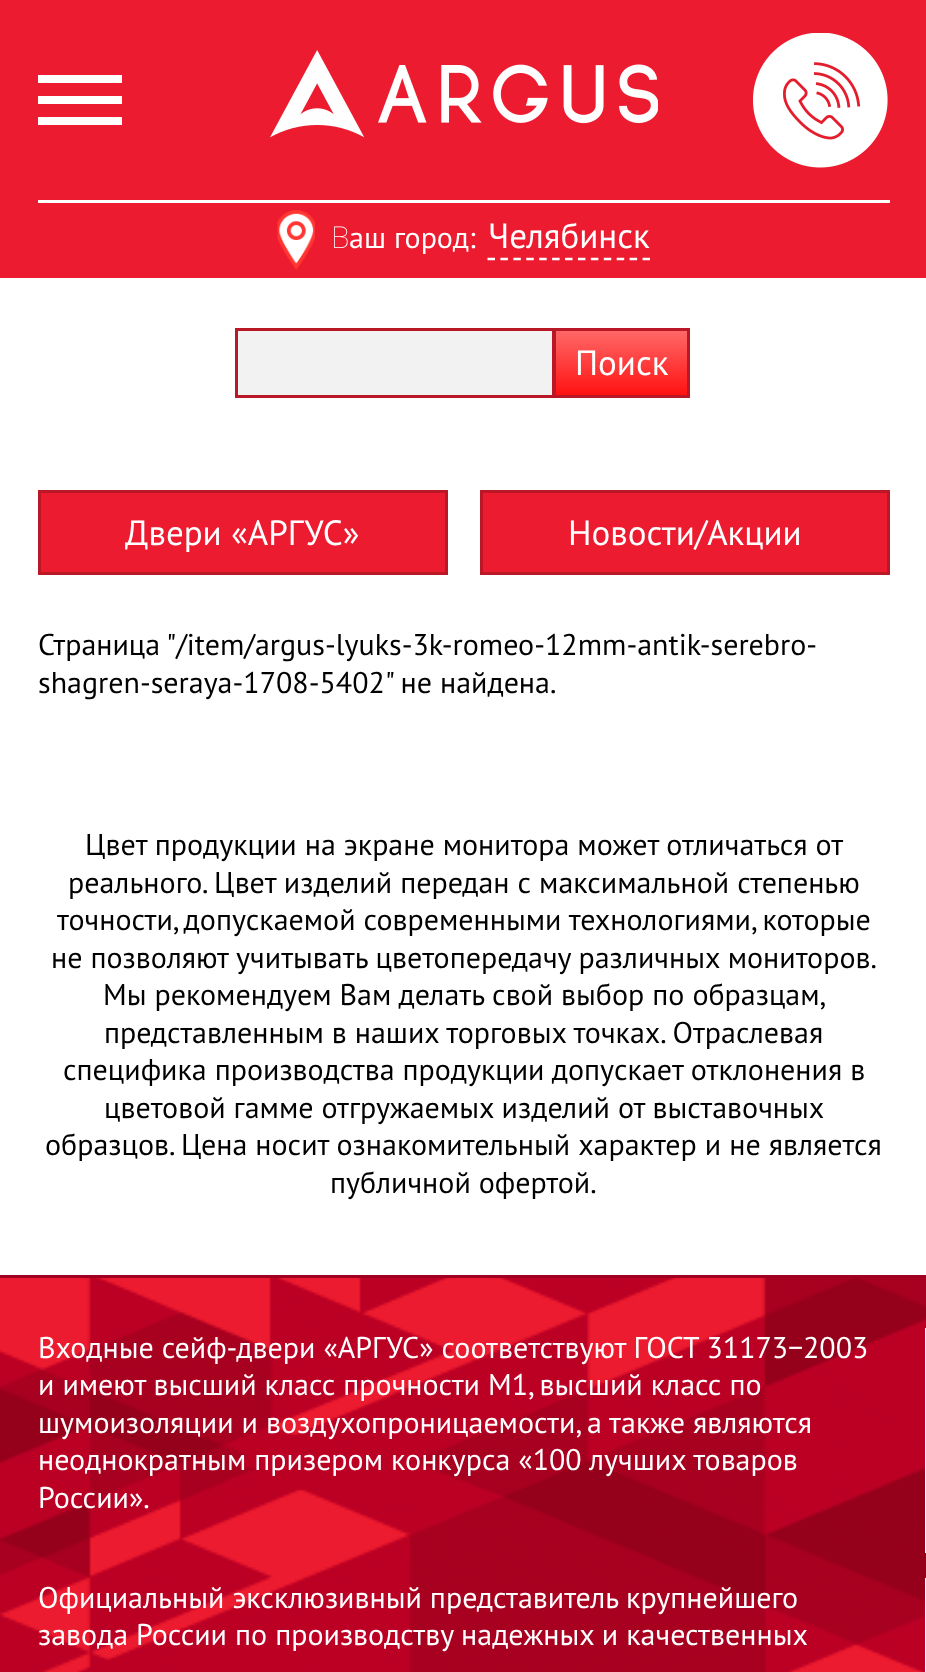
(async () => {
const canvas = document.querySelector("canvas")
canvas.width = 926
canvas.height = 1672
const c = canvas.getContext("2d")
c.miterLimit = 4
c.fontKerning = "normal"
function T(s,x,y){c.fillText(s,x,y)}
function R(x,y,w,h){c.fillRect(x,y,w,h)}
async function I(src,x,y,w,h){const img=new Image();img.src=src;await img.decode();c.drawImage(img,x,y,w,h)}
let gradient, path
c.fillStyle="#fff"
R(0,0,926,1672)
c.fillStyle="#ed1b2f"
R(0,0,926,278)
c.fillStyle="#fff"
path = new Path2D("M38 83v-8h84v8zm0 21h84v-8h-84zm0 21h84v-8h-84z")
c.fill(path,"evenodd")
await I("1.png",270,50,388,88)
await I("2.png",753,33,135,135)
R(38,200,852,3)
await I("3.png",277,210,38,60)
c.font="100 30px Noto Sans"
T("В",331,248)
c.font="30px PT Sans"
T("аш город:",349,248)
c.font="35px PT Sans"
T("Челябинск",488,248)
path = new Path2D("M487.5 259h162.5")
c.strokeStyle="#fff"
c.lineWidth=2.5
c.setLineDash([7.5,5.42])
c.stroke(path)
c.fillStyle="#f2f2f2"
c.beginPath()
c.rect(236.5,329.5,317,67)
c.fill()
c.strokeStyle="#ba1727"
c.lineWidth=3
c.setLineDash([])
c.stroke()
gradient = c.createLinearGradient(621,330,621,395)
gradient.addColorStop(0,"#ff6969")
gradient.addColorStop(1,"#ff1212")
c.fillStyle = gradient
R(556,331,131,64)
c.strokeRect(554.5,329.5,134,67)
c.fillStyle="#fff"
T("Поиск",575,375)
c.fillStyle="#ed1b2f"
c.beginPath()
c.rect(39.5,491.5,407,82)
c.fill()
c.stroke()
c.fillStyle="#fff"
T("Двери «АРГУС»",125,545)
c.fillStyle="#ed1b2f"
c.beginPath()
c.rect(481.5,491.5,407,82)
c.fill()
c.stroke()
c.fillStyle="#fff"
T("Новости/Акции",568,545)
c.font="30px PT Sans"
c.fillStyle="#000"
T("Страница \"/item/argus-lyuks-3k-romeo-12mm-antik-serebro-",38,655)
T("shagren-seraya-1708-5402\" не найдена.",38,693)
T("Цвет продукции на экране монитора может отличаться от",85,855)
T("реального. Цвет изделий передан с максимальной степенью",68,893)
T("точности, допускаемой современными технологиями, которые",57,930)
T("не позволяют учитывать цветопередачу различных мониторов.",51,968)
T("Мы рекомендуем Вам делать свой выбор по образцам,",103,1005)
T("представленным в наших торговых точках. Отраслевая",104,1043)
T("специфика производства продукции допускает отклонения в",63,1080)
T("цветовой гамме отгружаемых изделий от выставочных",104,1118)
T("образцов. Цена носит ознакомительный характер и не является",45,1155)
T("публичной офертой.",330,1193)
c.fillStyle="#ed1b2f"
R(0,1278,925,394)
await I("4.png",0,1278,453,394)
await I("5.png",77,1278,849,394)
c.fillStyle="#a00021"
R(0,1275,926,3)
c.fillStyle="#fff"
R(925,1328,1,225)
T("Входные сейф-двери «АРГУС» соответствуют ГОСТ 31173",38,1358)
c.font="30px 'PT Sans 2'"
T("−",788,1358)
c.font="30px PT Sans"
T("2003",803,1358)
T("и имеют высший класс прочности М1, высший класс по",38,1395)
T("шумоизоляции и воздухопроницаемости, а также являются",38,1433)
T("неоднократным призером конкурса «100 лучших товаров",38,1470)
T("России».",38,1508)
R(925,1578,1,94)
T("Официальный эксклюзивный представитель крупнейшего",38,1608)
T("завода России по производству надежных и качественных",38,1645)
})()
